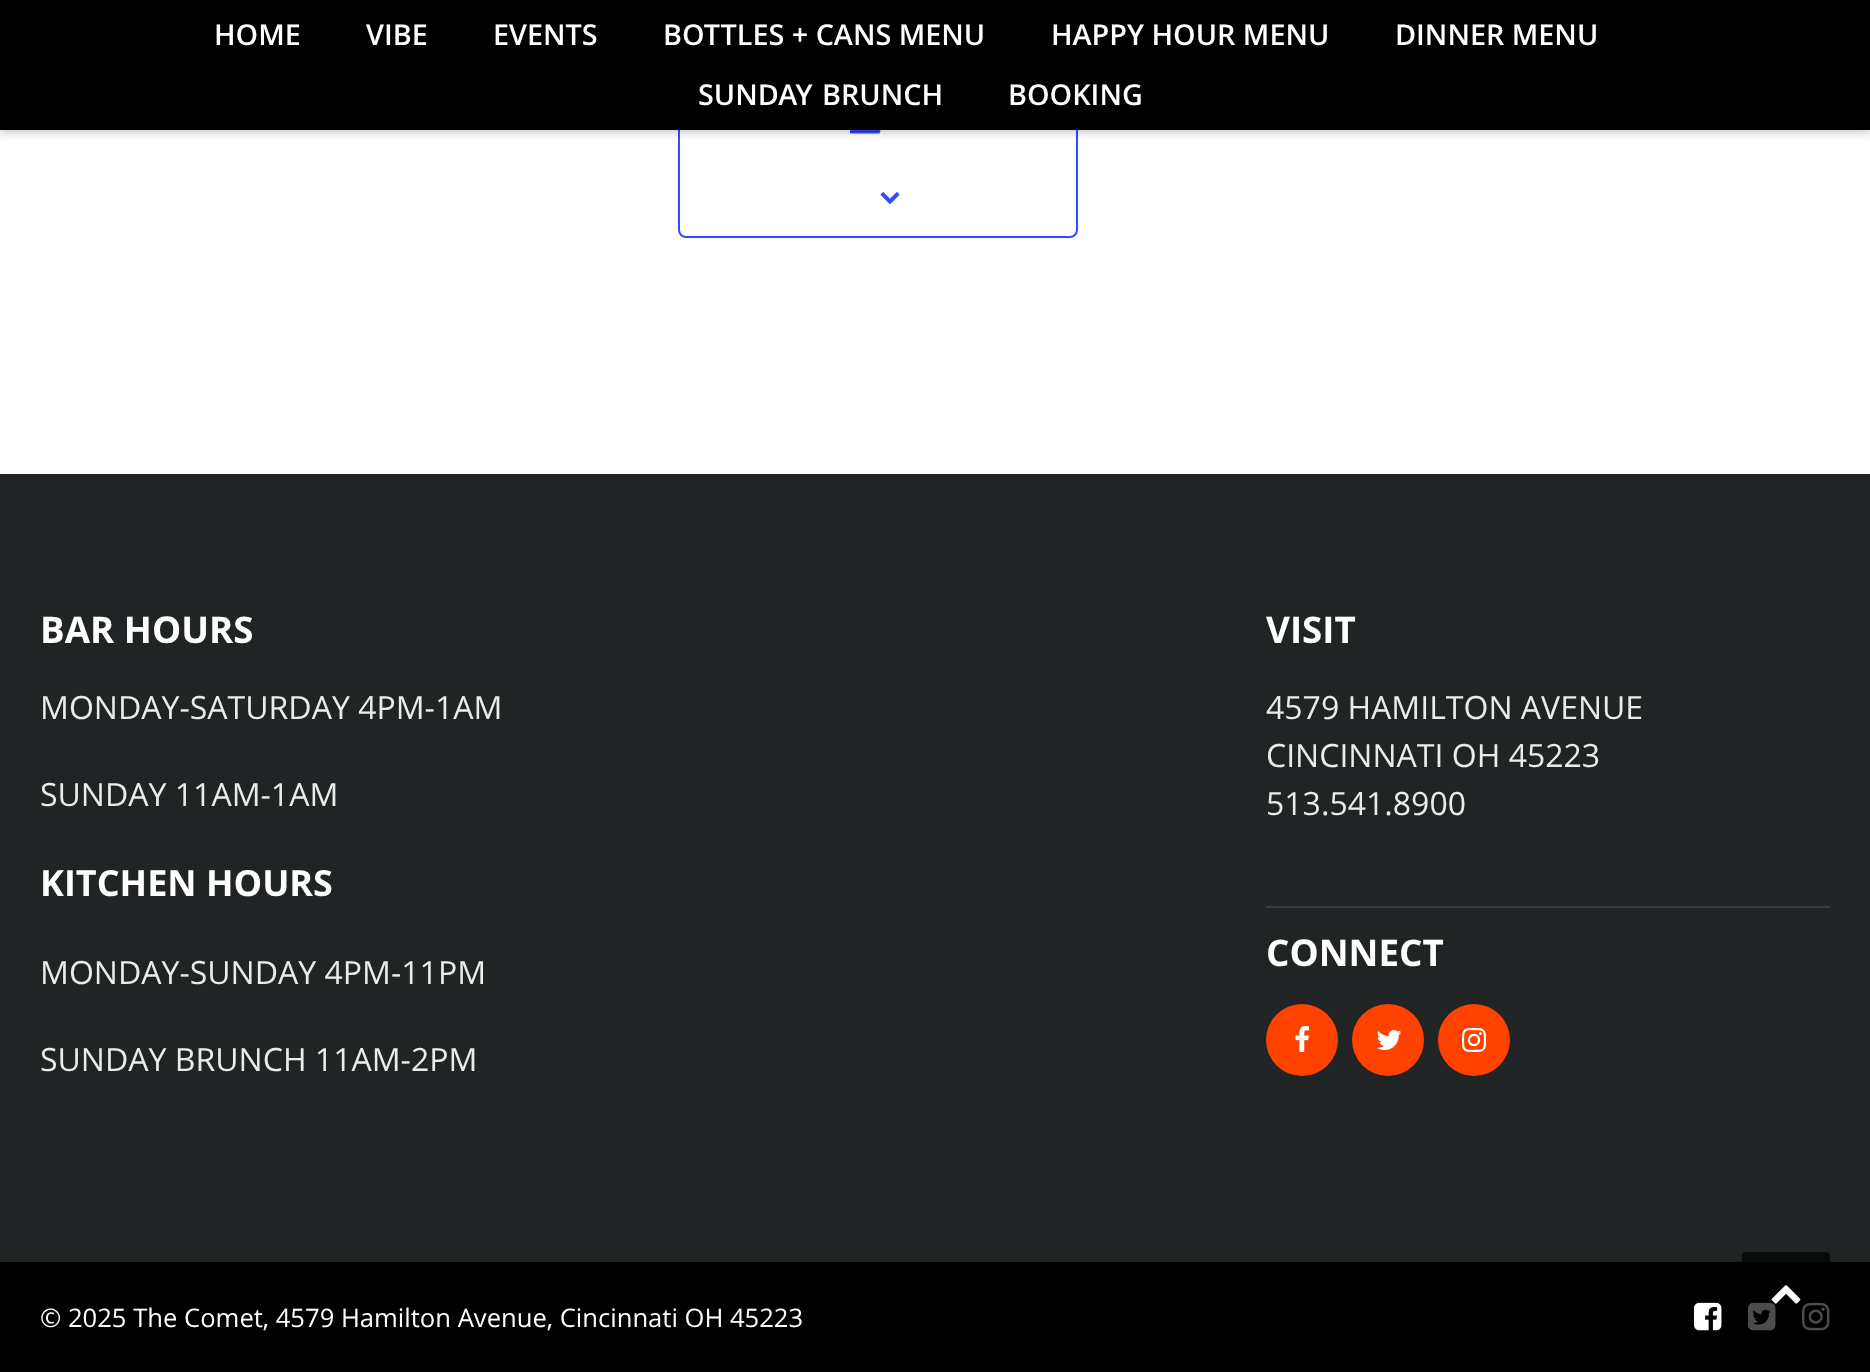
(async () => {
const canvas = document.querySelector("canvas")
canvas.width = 1870
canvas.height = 1372
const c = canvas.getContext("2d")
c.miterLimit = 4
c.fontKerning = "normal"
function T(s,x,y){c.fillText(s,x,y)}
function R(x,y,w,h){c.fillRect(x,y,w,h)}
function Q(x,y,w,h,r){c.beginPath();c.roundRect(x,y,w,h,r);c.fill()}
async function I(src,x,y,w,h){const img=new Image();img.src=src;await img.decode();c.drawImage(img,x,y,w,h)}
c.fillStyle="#fff"
R(0,0,1870,1372)
c.beginPath()
c.roundRect(679,79,398,158,7)
c.strokeStyle="#334aff"
c.lineWidth=2
c.stroke()
await I("1.png",850,130,31,4)
c.fillStyle="#00000040"
c.filter="blur(5px)"
c.beginPath()
c.rect(0,2,1870,130)
c.fill()
c.filter="none"
c.fillStyle="#000"
R(0,0,1870,130)
c.font="600 28.75px Open Sans"
c.fillStyle="#fff"
T("HOME",214,45)
T("VIBE",366,45)
T("EVENTS",493,45)
T("BOTTLES + CANS MENU",663,45)
T("HAPPY HOUR MENU",1051,45)
T("DINNER MENU",1395,45)
c.wordSpacing="2px"
T("SUNDAY BRUNCH",698,105)
c.wordSpacing="0px"
T("BOOKING",1008,105)
await I("2.png",880,192,20,12)
c.fillStyle="#212425"
R(0,474,1870,788)
c.font="bold 36.75px Open Sans"
c.fillStyle="#fff"
T("BAR HOURS",40,643)
c.font="32px Open Sans"
c.fillStyle="#ebebeb"
T("MONDAY-SATURDAY 4PM-1AM",40,719)
T("SUNDAY 11AM-1AM",40,806)
c.font="bold 36px Open Sans"
c.fillStyle="#fff"
T("KITCHEN HOURS",40,896)
c.font="32px Open Sans"
c.fillStyle="#ebebeb"
T("MONDAY-SUNDAY 4PM-11PM",40,984)
T("SUNDAY BRUNCH 11AM-2PM",40,1071)
c.font="bold 36.75px Open Sans"
c.fillStyle="#fff"
T("VISIT",1266,643)
c.font="32px Open Sans"
c.fillStyle="#ebebeb"
T("4579 HAMILTON AVENUE",1266,719)
T("CINCINNATI OH 45223",1266,767)
T("513.541.8900",1266,815)
c.fillStyle="#373b3c"
R(1266,906,564,2)
c.font="bold 36.75px Open Sans"
c.fillStyle="#fff"
T("CONNECT",1266,966)
c.fillStyle="#ff4200"
c.beginPath()
c.arc(1302,1040,36,0,7)
c.fill()
await I("3.png",1295,1026,14,26)
c.beginPath()
c.arc(1388,1040,36,0,7)
c.fill()
await I("4.png",1376,1030,26,20)
c.beginPath()
c.arc(1474,1040,36,0,7)
c.fill()
await I("5.png",1462,1028,24,24)
c.fillStyle="#000"
R(0,1262,1870,110)
c.font="25.6px Open Sans"
c.fillStyle="#fff"
T("© 2025 The Comet, 4579 Hamilton Avenue, Cincinnati OH 45223",40,1327)
await I("6.png",1694,1302,28,29)
await I("7.png",1748,1302,28,29)
await I("8.png",1802,1302,28,29)
c.fillStyle="#000000b3"
Q(1742,1252,88,80,4)
await I("9.png",1771,1285,30,19)
})()
